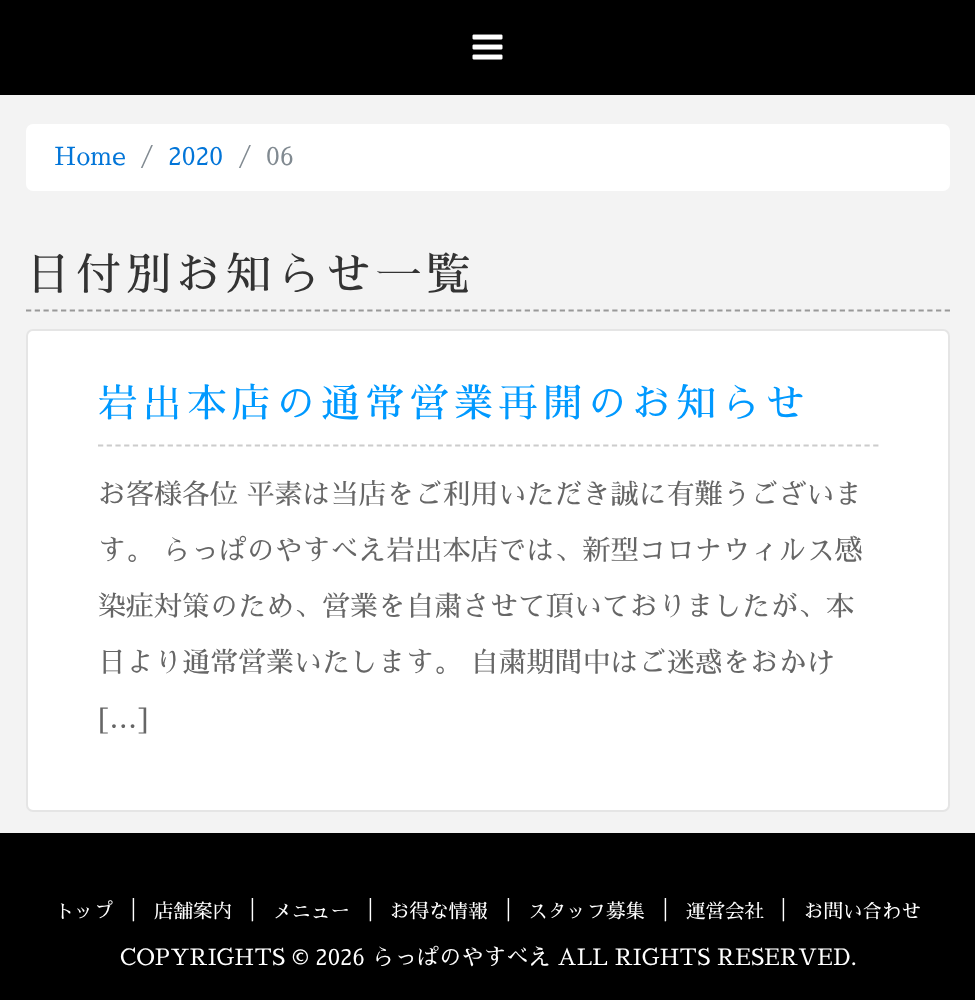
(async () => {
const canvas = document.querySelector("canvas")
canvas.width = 975
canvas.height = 1000
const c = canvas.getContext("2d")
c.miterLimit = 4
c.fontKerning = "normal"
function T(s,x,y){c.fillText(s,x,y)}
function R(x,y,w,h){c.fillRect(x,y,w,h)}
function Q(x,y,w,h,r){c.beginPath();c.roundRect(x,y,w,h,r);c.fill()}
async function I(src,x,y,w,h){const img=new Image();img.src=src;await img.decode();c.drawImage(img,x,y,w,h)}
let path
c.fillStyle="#f3f3f3"
R(0,0,975,1000)
c.fillStyle="#000"
R(0,0,975,95)
await I("1.png",472,34,31,26)
c.fillStyle="#fff"
Q(26,124,924,67,7)
c.font="25px Sawarabi Mincho"
c.fillStyle="#0275d8"
T("Home",54,165)
c.fillStyle="#818a91"
T("/",140,165)
c.fillStyle="#0275d8"
T("2020",168,165)
c.fillStyle="#818a91"
T("/",238,165)
T("06",266,165)
path = new Path2D("M26 310.5h924")
c.strokeStyle="#999"
c.lineWidth=1.8
c.setLineDash([5.25,3.5])
c.stroke(path)
c.letterSpacing="5.25px"
c.font="44.75px Sawarabi Mincho"
c.fillStyle="#333"
T("日付別お知らせ一覧",26,290)
c.fillStyle="#fff"
c.beginPath()
c.roundRect(27,330,922,481,6)
c.fill()
c.strokeStyle="#e5e5e5"
c.lineWidth=2
c.setLineDash([])
c.stroke()
path = new Path2D("M98 445.5h780.5")
c.strokeStyle="#ccc"
c.lineWidth=1.8
c.setLineDash([5.25,3.46])
c.stroke(path)
c.font="39.25px Sawarabi Mincho"
c.fillStyle="#09f"
T("岩出本店の通常営業再開のお知らせ",98,417)
c.letterSpacing="0px"
c.font="28px Sawarabi Mincho"
c.fillStyle="#666"
T("お客様各位 平素は当店をご利用いただき誠に有難うございま",98,504)
T("す。 らっぱのやすべえ岩出本店では、新型コロナウィルス感",98,560)
T("染症対策のため、営業を自粛させて頂いておりましたが、本",98,616)
T("日より通常営業いたします。 自粛期間中はご迷惑をおかけ",98,672)
T("[…]",98,728)
c.fillStyle="#000"
R(0,833,975,167)
c.font="19.5px Sawarabi Mincho"
c.fillStyle="#fff"
T("トップ",55,918)
c.font="25px Sawarabi Mincho"
T("|",131,918)
c.font="19.5px Sawarabi Mincho"
T("店舗案内",154,918)
c.font="25px Sawarabi Mincho"
T("|",250,918)
c.font="19.5px Sawarabi Mincho"
T("メニュー",272,918)
c.font="25px Sawarabi Mincho"
T("|",368,918)
c.font="19.5px Sawarabi Mincho"
T("お得な情報",390,918)
c.font="25px Sawarabi Mincho"
T("|",506,918)
c.font="19.5px Sawarabi Mincho"
T("スタッフ募集",528,918)
c.font="25px Sawarabi Mincho"
T("|",663,918)
c.font="19.5px Sawarabi Mincho"
T("運営会社",686,918)
c.font="25px Sawarabi Mincho"
T("|",781,918)
c.font="19.5px Sawarabi Mincho"
T("お問い合わせ",804,918)
c.font="22.4px Sawarabi Mincho"
T("COPYRIGHTS © 2026 らっぱのやすべえ ALL RIGHTS RESERVED.",120,965)
})()
